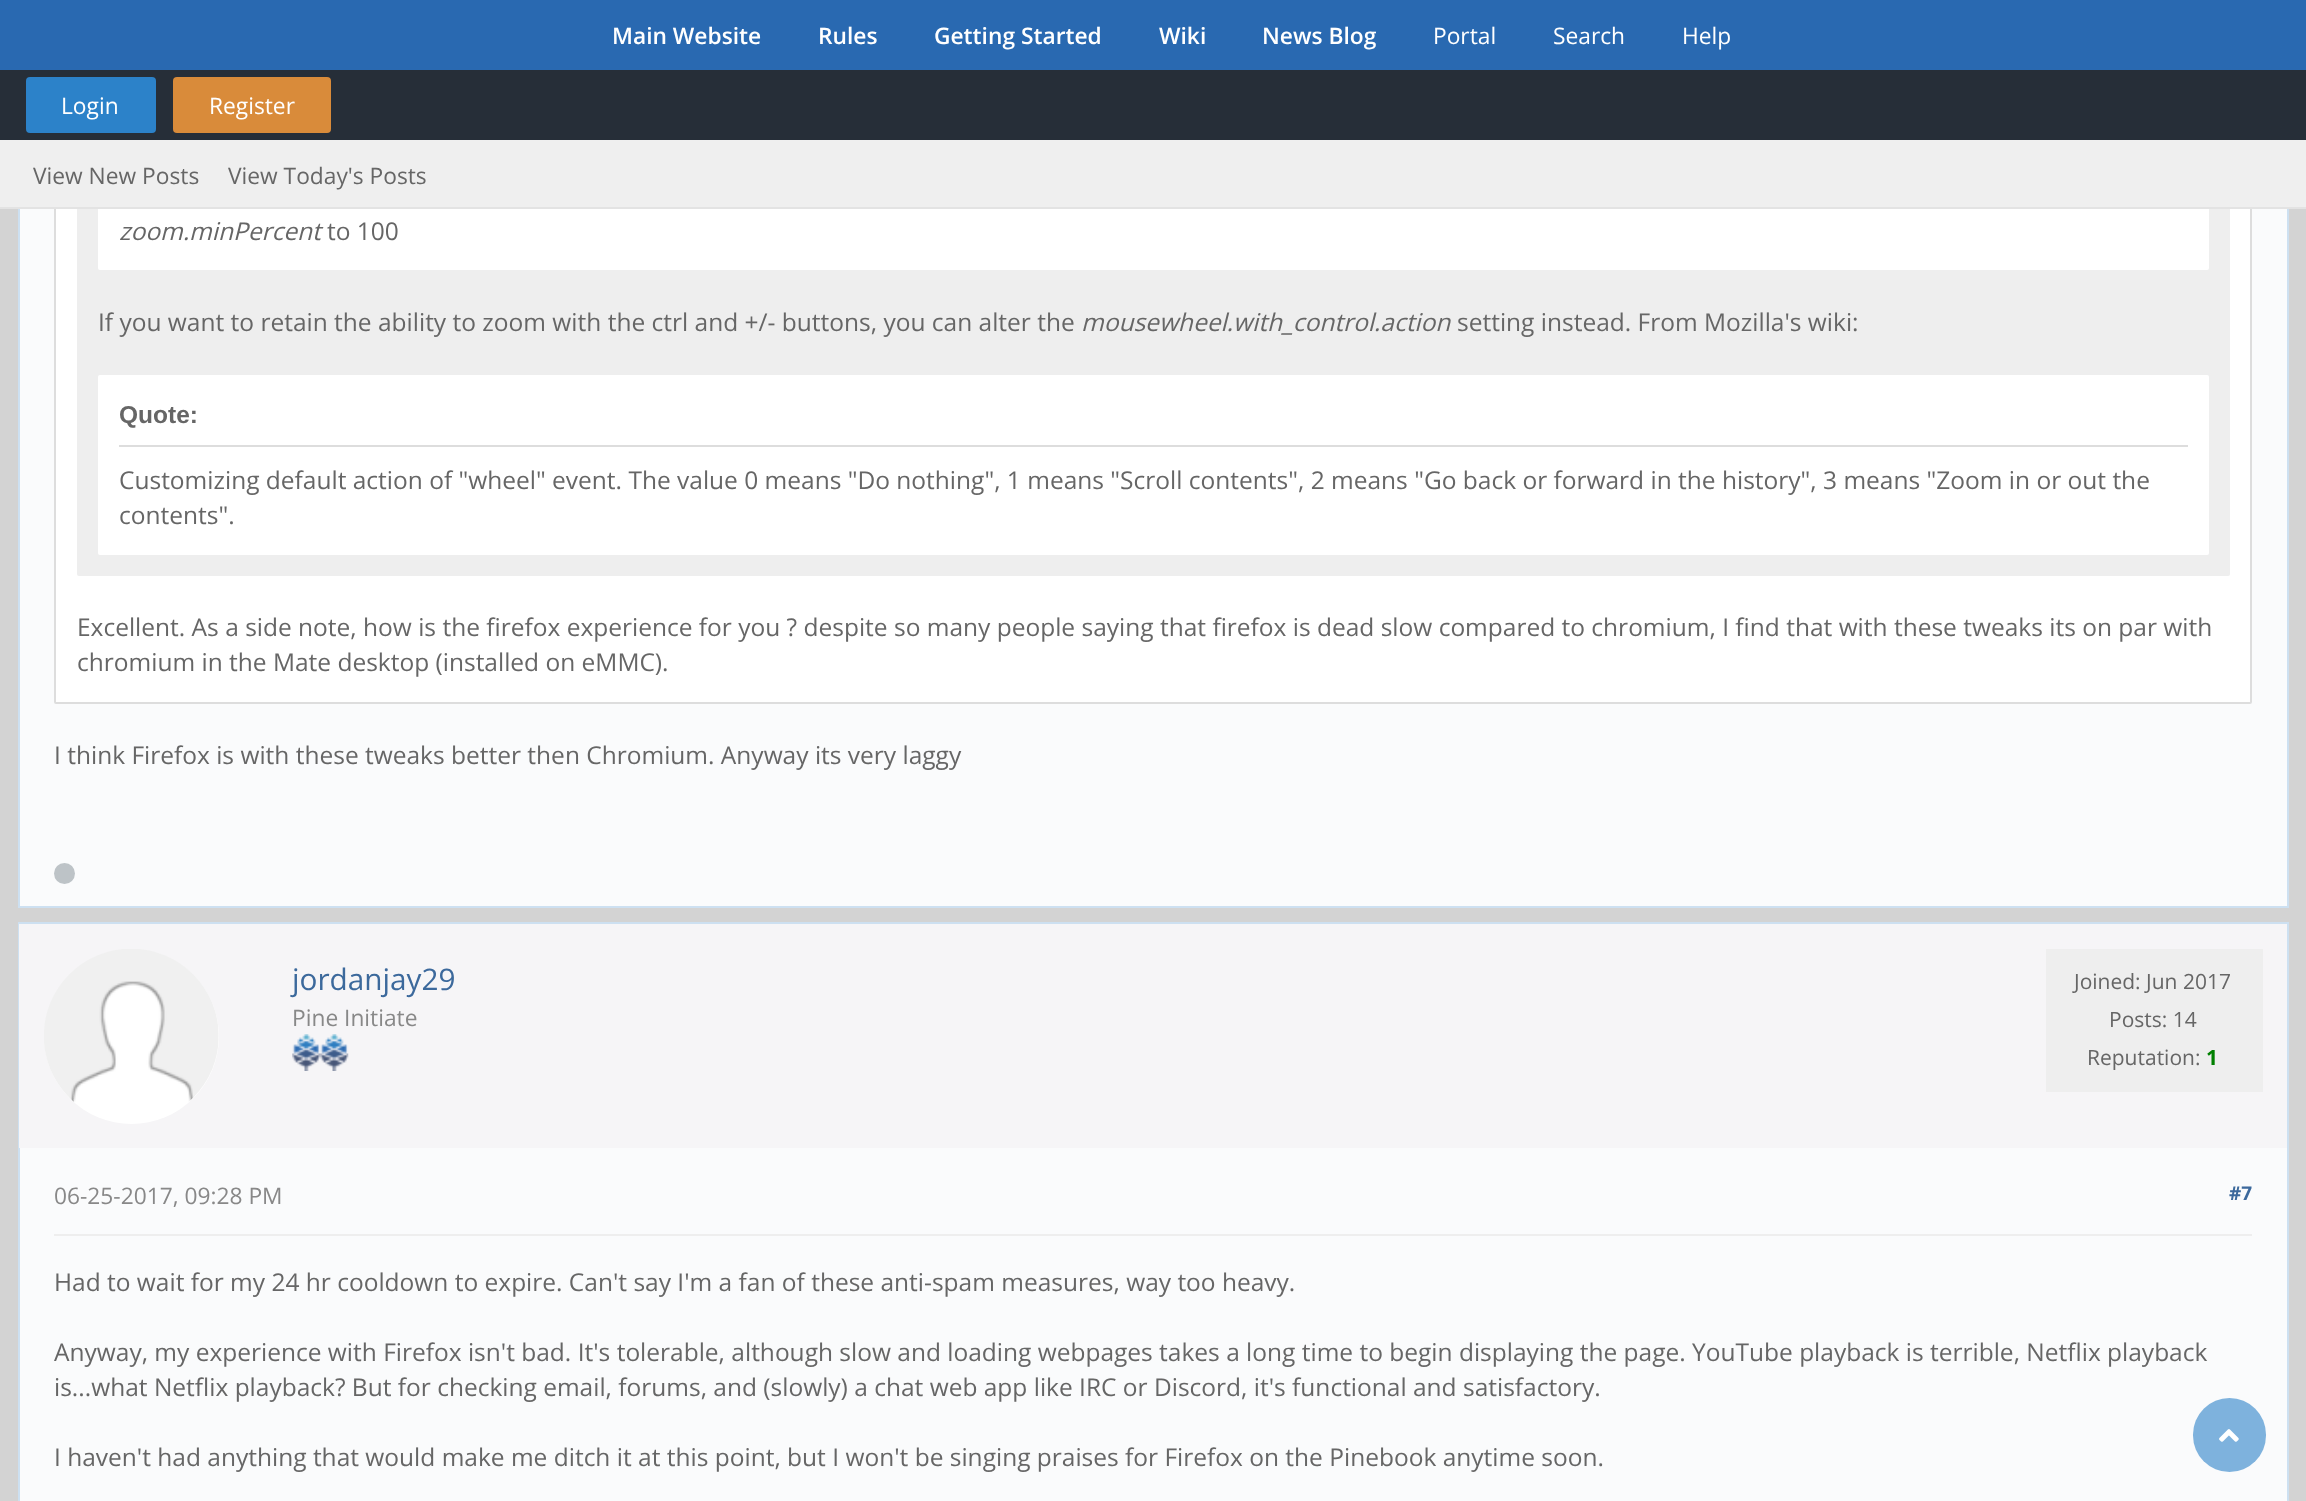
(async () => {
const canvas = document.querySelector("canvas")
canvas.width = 2306
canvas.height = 1501
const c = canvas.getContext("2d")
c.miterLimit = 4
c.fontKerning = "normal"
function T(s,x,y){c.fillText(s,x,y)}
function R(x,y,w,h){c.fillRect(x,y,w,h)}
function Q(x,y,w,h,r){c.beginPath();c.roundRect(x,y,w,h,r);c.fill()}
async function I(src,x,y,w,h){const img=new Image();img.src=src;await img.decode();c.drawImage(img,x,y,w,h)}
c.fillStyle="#d3d3d3"
R(0,0,2306,1501)
c.fillStyle="#fafbfc"
R(20,209,2267,697)
c.strokeStyle="#cde0f1"
c.lineWidth=2
c.strokeRect(19,-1,2269,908)
c.fillStyle="#fff"
c.beginPath()
c.roundRect(55,-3,2196,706,1)
c.fill()
c.strokeStyle="#ddd"
c.stroke()
c.fillStyle="#eee"
Q(77,-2,2153,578,2)
c.fillStyle="#fff"
Q(98,56,2111,214,2)
c.fillStyle="#2969b1"
R(0,0,2306,70)
c.font="600 22.75px Open Sans"
c.fillStyle="#fff"
T("Main Website",612,44)
T("Rules",818,44)
T("Getting Started",934,44)
T("Wiki",1159,44)
T("News Blog",1262,44)
c.font="22.75px Open Sans"
T("Portal",1433,44)
T("Search",1553,44)
T("Help",1682,44)
c.fillStyle="#262e38"
R(0,70,2306,70)
c.fillStyle="#2c82c9"
Q(26,77,130,56,4)
c.fillStyle="#fff"
T("Login",61,114)
c.fillStyle="#d98b3a"
Q(173,77,158,56,4)
c.fillStyle="#fff"
T("Register",209,114)
c.fillStyle="#efefef"
R(0,140,2306,67)
c.fillStyle="#e3e3e3"
R(0,207,2306,2)
c.fillStyle="#666"
T("View New Posts",33,184)
T("View Today's Posts",228,184)
c.font="italic 24.5px Open Sans"
T("zoom.minPercent",119,240)
c.font="24.5px Open Sans"
T("to 100",327,240)
T("If you want to retain the ability to zoom with the ctrl and +/- buttons, you can alter the",98,331)
c.font="italic 24.5px Open Sans"
T("mousewheel.with_control.action",1081,331)
c.font="24.5px Open Sans"
T("setting instead. From Mozilla's wiki:",1457,331)
c.fillStyle="#fff"
Q(98,375,2111,180,2)
c.fillStyle="#ddd"
R(119,445,2069,2)
c.font="bold 24.5px Liberation Sans"
c.fillStyle="#666"
T("Quote:",119,423)
c.font="24.5px Open Sans"
T("Customizing default action of \"wheel\" event. The value 0 means \"Do nothing\", 1 means \"Scroll contents\", 2 means \"Go back or forward in the history\", 3 means \"Zoom in or out the",119,489)
T("contents\".",119,524)
T("Excellent. As a side note, how is the firefox experience for you ? despite so many people saying that firefox is dead slow compared to chromium, I find that with these tweaks its on par with",77,636)
T("chromium in the Mate desktop (installed on eMMC).",77,671)
T("I think Firefox is with these tweaks better then Chromium. Anyway its very laggy",54,764)
c.fillStyle="#bdc3c7"
c.beginPath()
c.arc(64.5,873.5,10.5,0,7)
c.fill()
c.fillStyle="#fafbfc"
R(20,1148,2267,353)
c.strokeStyle="#cde0f1"
c.strokeRect(19,923,2269,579)
c.fillStyle="#f6f5f7"
R(19,924,2268,224)
c.fillStyle="#fff"
c.beginPath()
c.arc(131.5,1036.5,87.5,0,7)
c.fill()
await I("1.png",44,949,175,153)
c.font="29.75px Open Sans"
c.fillStyle="#3c699c"
T("jordanjay29",292,990)
c.font="22.75px Open Sans"
c.fillStyle="#888"
T("Pine Initiate",292,1026)
await I("2.png",292,1034,29,37)
await I("3.png",320,1034,29,37)
c.fillStyle="#eee"
R(2046,949,217,143)
c.font="21px Open Sans"
c.fillStyle="#666"
T("Joined: Jun 2017",2074,989)
T("Posts: 14",2109,1027)
T("Reputation:",2087,1065)
c.font="bold 21px Open Sans"
c.fillStyle="#008000"
T("1",2206,1065)
c.fillStyle="#eee"
R(54,1234,2198,2)
c.font="22.75px Open Sans"
c.fillStyle="#888"
T("06-25-2017, 09:28 PM",54,1204)
c.font="bold 19px Open Sans"
c.fillStyle="#3c699c"
T("#7",2229,1200)
c.font="24.5px Open Sans"
c.fillStyle="#666"
T("Had to wait for my 24 hr cooldown to expire. Can't say I'm a fan of these anti-spam measures, way too heavy.",54,1291)
T("Anyway, my experience with Firefox isn't bad. It's tolerable, although slow and loading webpages takes a long time to begin displaying the page. YouTube playback is terrible, Netflix playback",54,1361)
T("is...what Netflix playback? But for checking email, forums, and (slowly) a chat web app like IRC or Discord, it's functional and satisfactory.",54,1396)
T("I haven't had anything that would make me ditch it at this point, but I won't be singing praises for Firefox on the Pinebook anytime soon.",54,1466)
c.fillStyle="#7eb2dd"
Q(2193,1398,73,74,36.5)
await I("4.png",2219,1429,20,13)
})()
